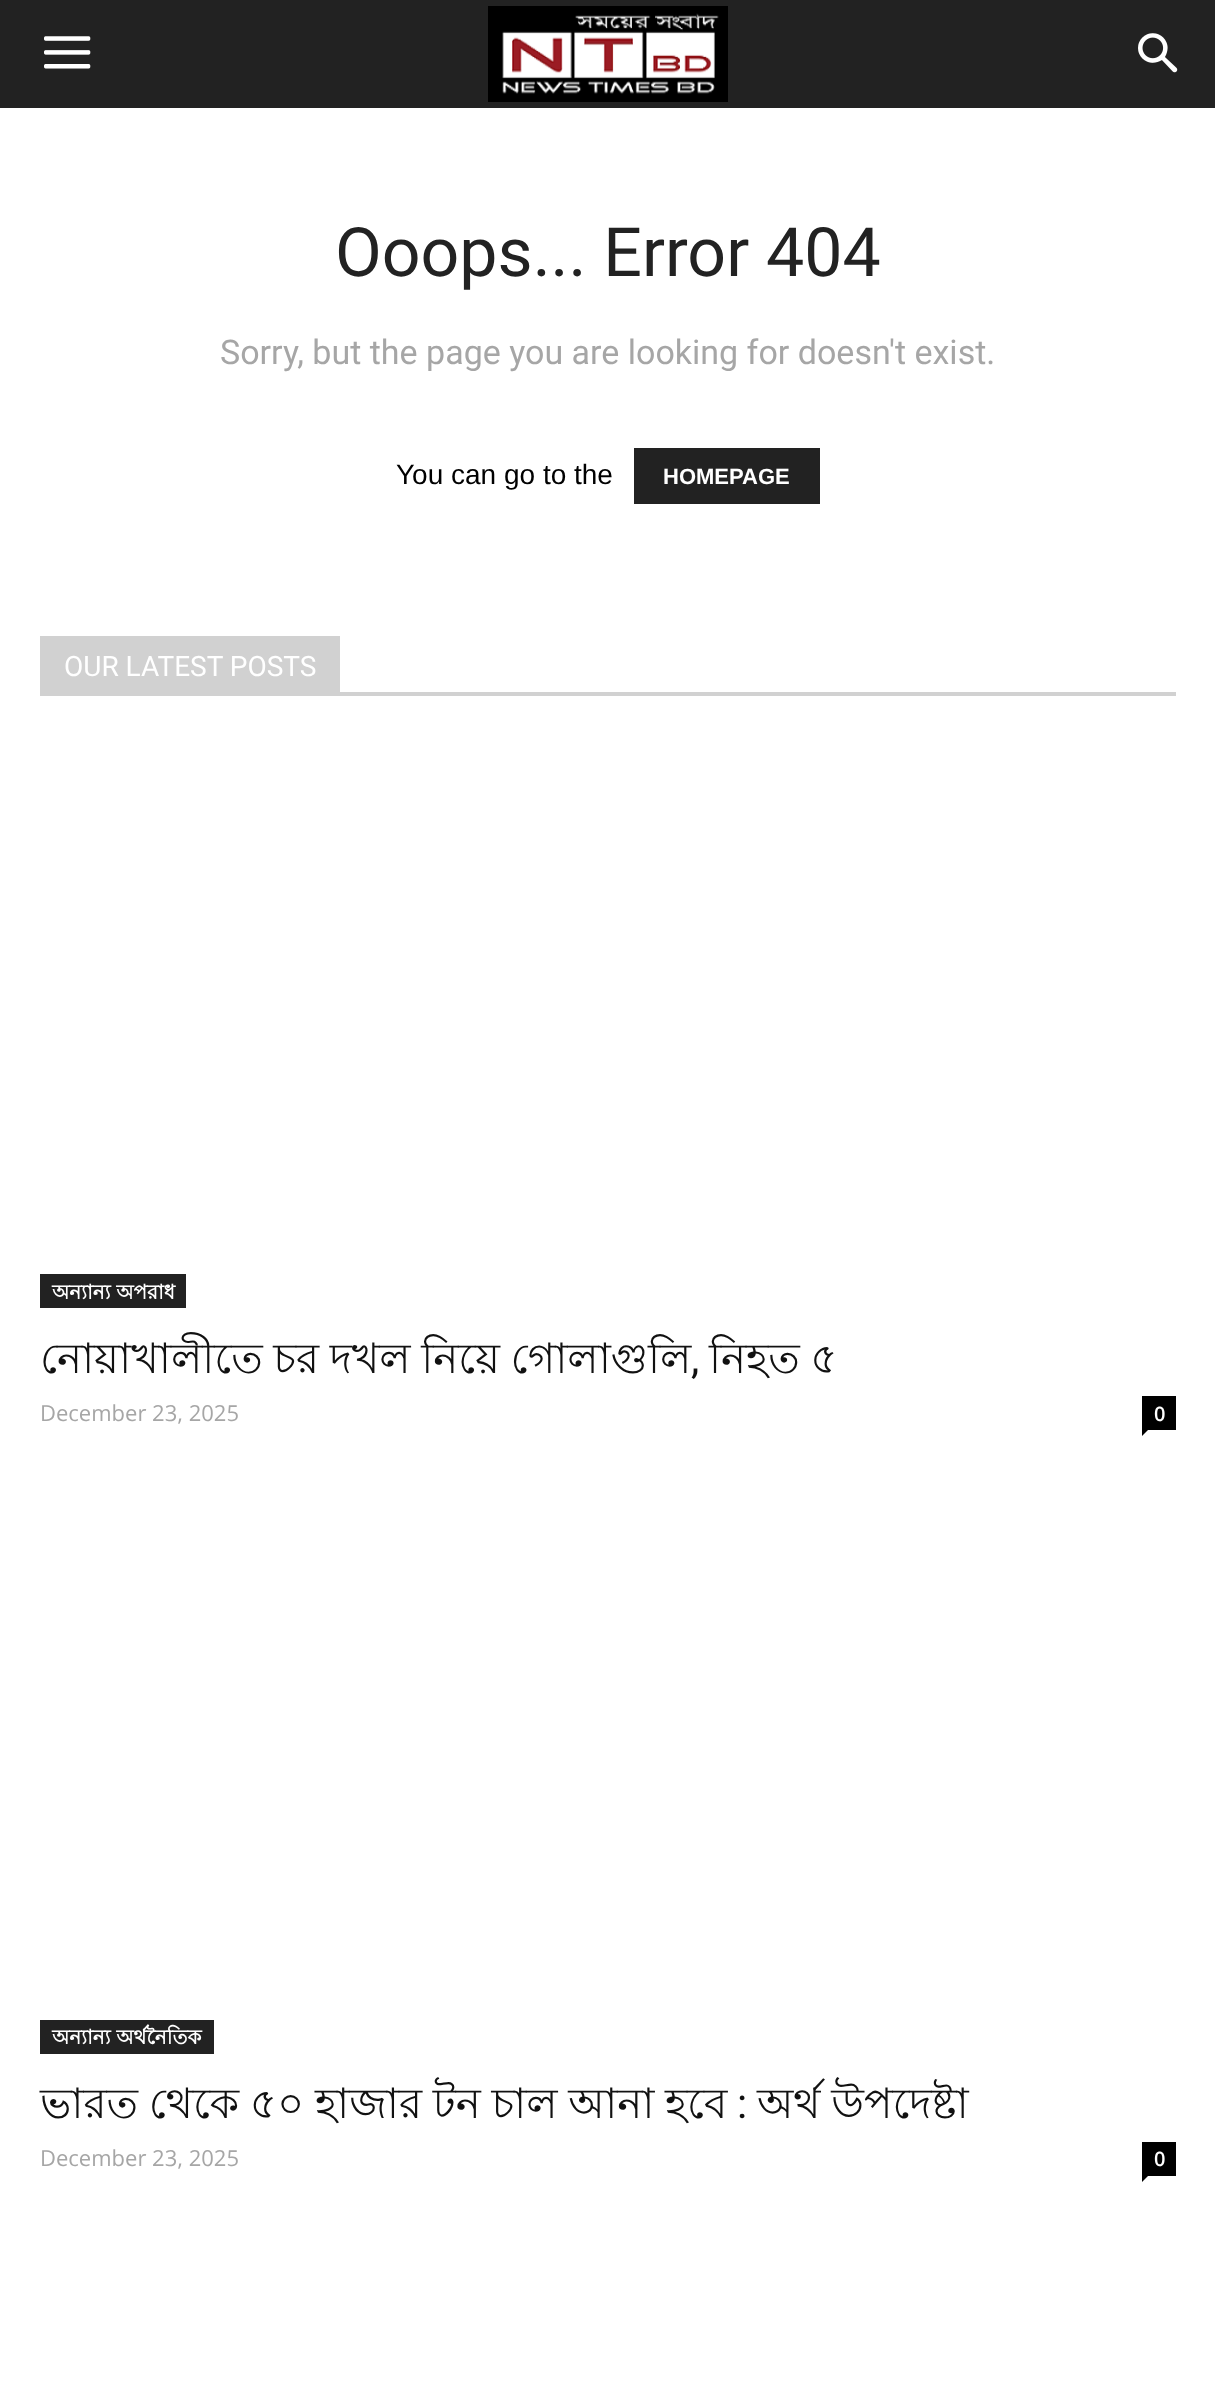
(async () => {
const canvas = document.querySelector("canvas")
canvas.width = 1215
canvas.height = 2388
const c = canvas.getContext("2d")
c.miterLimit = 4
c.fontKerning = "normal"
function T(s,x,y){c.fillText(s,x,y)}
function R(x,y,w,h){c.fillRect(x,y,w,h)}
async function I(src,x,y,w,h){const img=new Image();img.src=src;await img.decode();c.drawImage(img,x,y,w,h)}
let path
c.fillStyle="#fff"
R(0,0,1215,2388)
c.fillStyle="#222"
R(0,0,1215,108)
await I("1.png",44,36,47,33)
await I("2.png",488,6,240,96)
await I("3.png",1138,33,40,40)
c.font="68px Roboto"
T("Ooops... Error 404",335,276)
c.font="34px Roboto"
c.fillStyle="#a6a6a6"
T("Sorry, but the page you are looking for doesn't exist.",220,364)
c.font="28px Liberation Sans"
c.fillStyle="#000"
T("You can go to the",396,484)
c.fillStyle="#222"
R(634,448,186,56)
c.font="bold 22px Liberation Sans"
c.fillStyle="#fff"
T("HOMEPAGE",663,484)
c.fillStyle="#d1d1d1"
R(40,692,1136,4)
R(40,636,300,56)
c.font="28px Roboto"
c.fillStyle="#fff"
T("OUR LATEST POSTS",64,676)
c.fillStyle="#222"
R(40,1274,146,34)
c.font="bold 20px Lohit Bengali"
c.fillStyle="#fff"
T("অন্যান্য অপরাধ",52,1299)
c.wordSpacing="-1px"
c.font="42px Lohit Bengali"
c.fillStyle="#111"
T("নোয়াখালীতে চর দখল নিয়ে গোলাগুলি",40,1373)
c.wordSpacing="0px"
c.font="42px Roboto"
T(",",691,1373)
c.wordSpacing="-1px"
c.font="42px Lohit Bengali"
T("নিহত ৫",709,1373)
c.wordSpacing="0px"
c.font="22px Open Sans"
c.fillStyle="#a6a6a6"
T("December 23, 2025",40,1421)
c.fillStyle="#000"
R(1142,1396,34,34)
c.font="600 20px Open Sans"
c.fillStyle="#fff"
T("0",1154,1421)
c.fillStyle="#000"
path = new Path2D("M1142 1430h6l-6 6z")
c.fill(path)
c.fillStyle="#222"
R(40,2020,174,34)
c.font="bold 20px Lohit Bengali"
c.fillStyle="#fff"
T("অন্যান্য অর্থনৈতিক",52,2044)
c.wordSpacing="-1px"
c.font="42px Lohit Bengali"
c.fillStyle="#111"
T("ভারত থেকে ৫০ হাজার টন চাল আনা হবে",40,2118)
c.wordSpacing="0px"
c.font="42px Roboto"
T(":",737,2118)
c.wordSpacing="-1px"
c.font="42px Lohit Bengali"
T("অর্থ উপদেষ্টা",757,2118)
c.wordSpacing="0px"
c.font="22px Open Sans"
c.fillStyle="#a6a6a6"
T("December 23, 2025",40,2166)
c.fillStyle="#000"
R(1142,2142,34,34)
c.font="600 20px Open Sans"
c.fillStyle="#fff"
T("0",1154,2166)
c.fillStyle="#000"
path = new Path2D("M1142 2176h6l-6 6z")
c.fill(path)
})()
